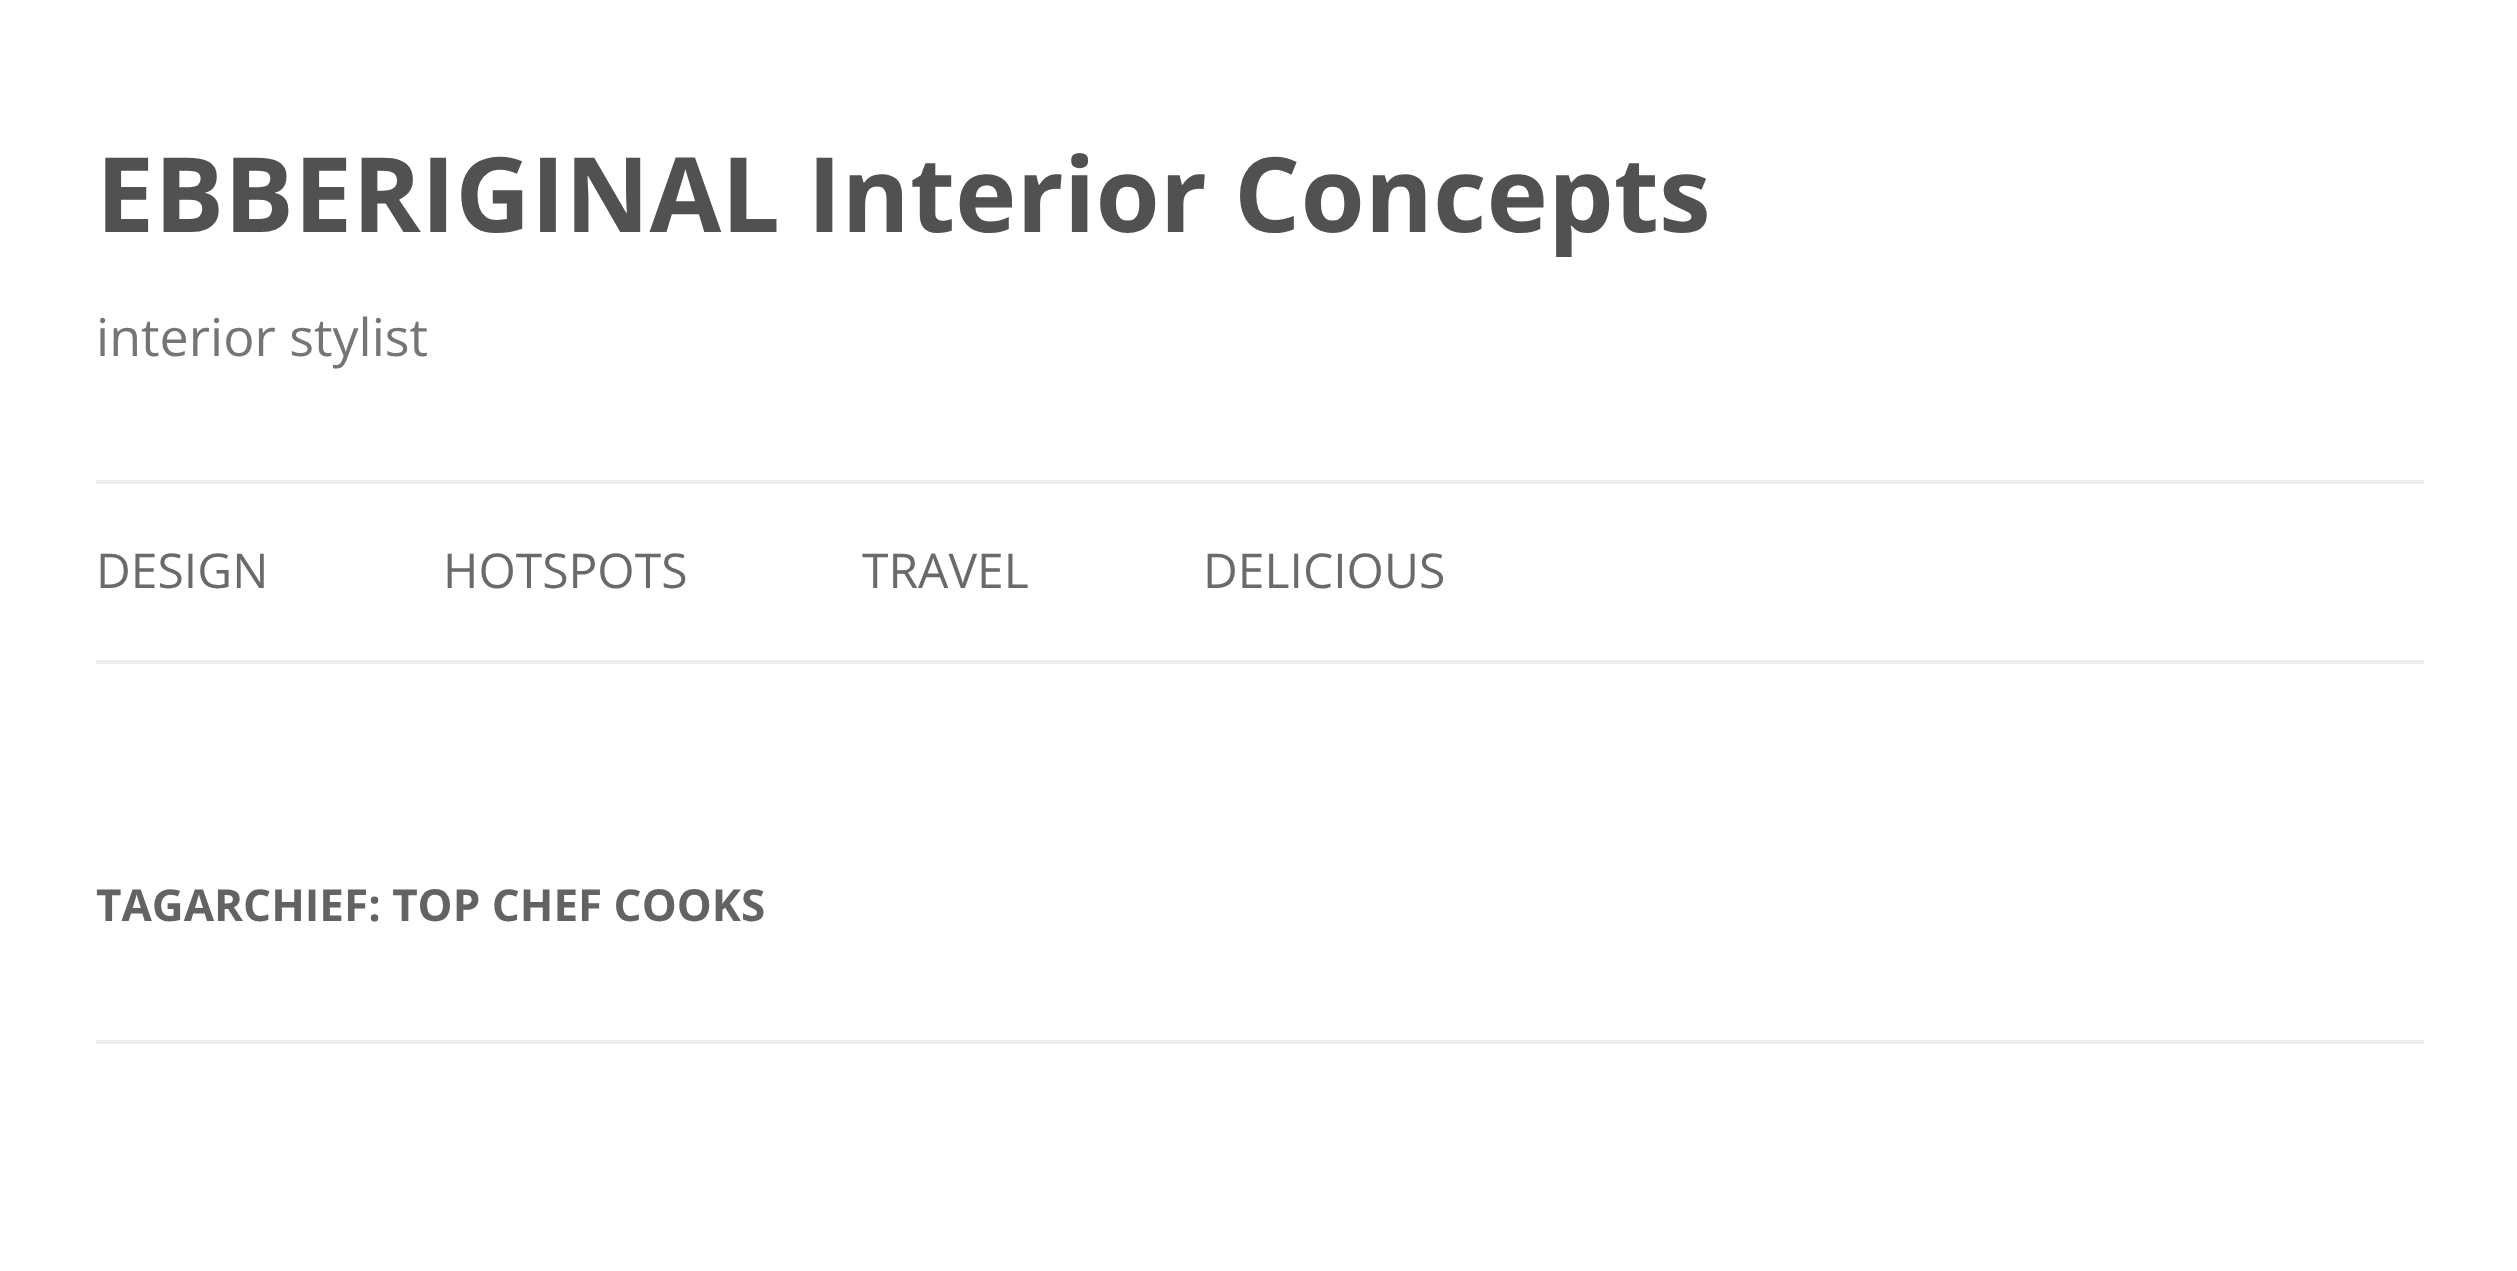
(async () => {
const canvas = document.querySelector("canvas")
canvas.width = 2517
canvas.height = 1271
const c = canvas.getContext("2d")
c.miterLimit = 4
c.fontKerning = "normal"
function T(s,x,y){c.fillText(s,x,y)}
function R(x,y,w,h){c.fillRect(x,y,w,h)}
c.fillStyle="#fff"
R(0,0,2517,1271)
c.font="bold 104px Open Sans"
c.fillStyle="#515151"
T("EBBERIGINAL Interior Concepts",96,232)
c.font="52px Open Sans"
c.fillStyle="#757575"
T("interior stylist",96,356)
c.fillStyle="#ededed"
R(96,480,2328,4)
R(96,660,2328,4)
c.font="48px Open Sans"
c.fillStyle="#6a6a6a"
T("DESIGN",96,588)
T("HOTSPOTS",443,588)
T("TRAVEL",862,588)
T("DELICIOUS",1203,588)
c.fillStyle="#ededed"
R(96,1040,2328,4)
c.font="bold 44px Open Sans"
c.fillStyle="#636363"
T("TAGARCHIEF: TOP CHEF COOKS",96,921)
})()
